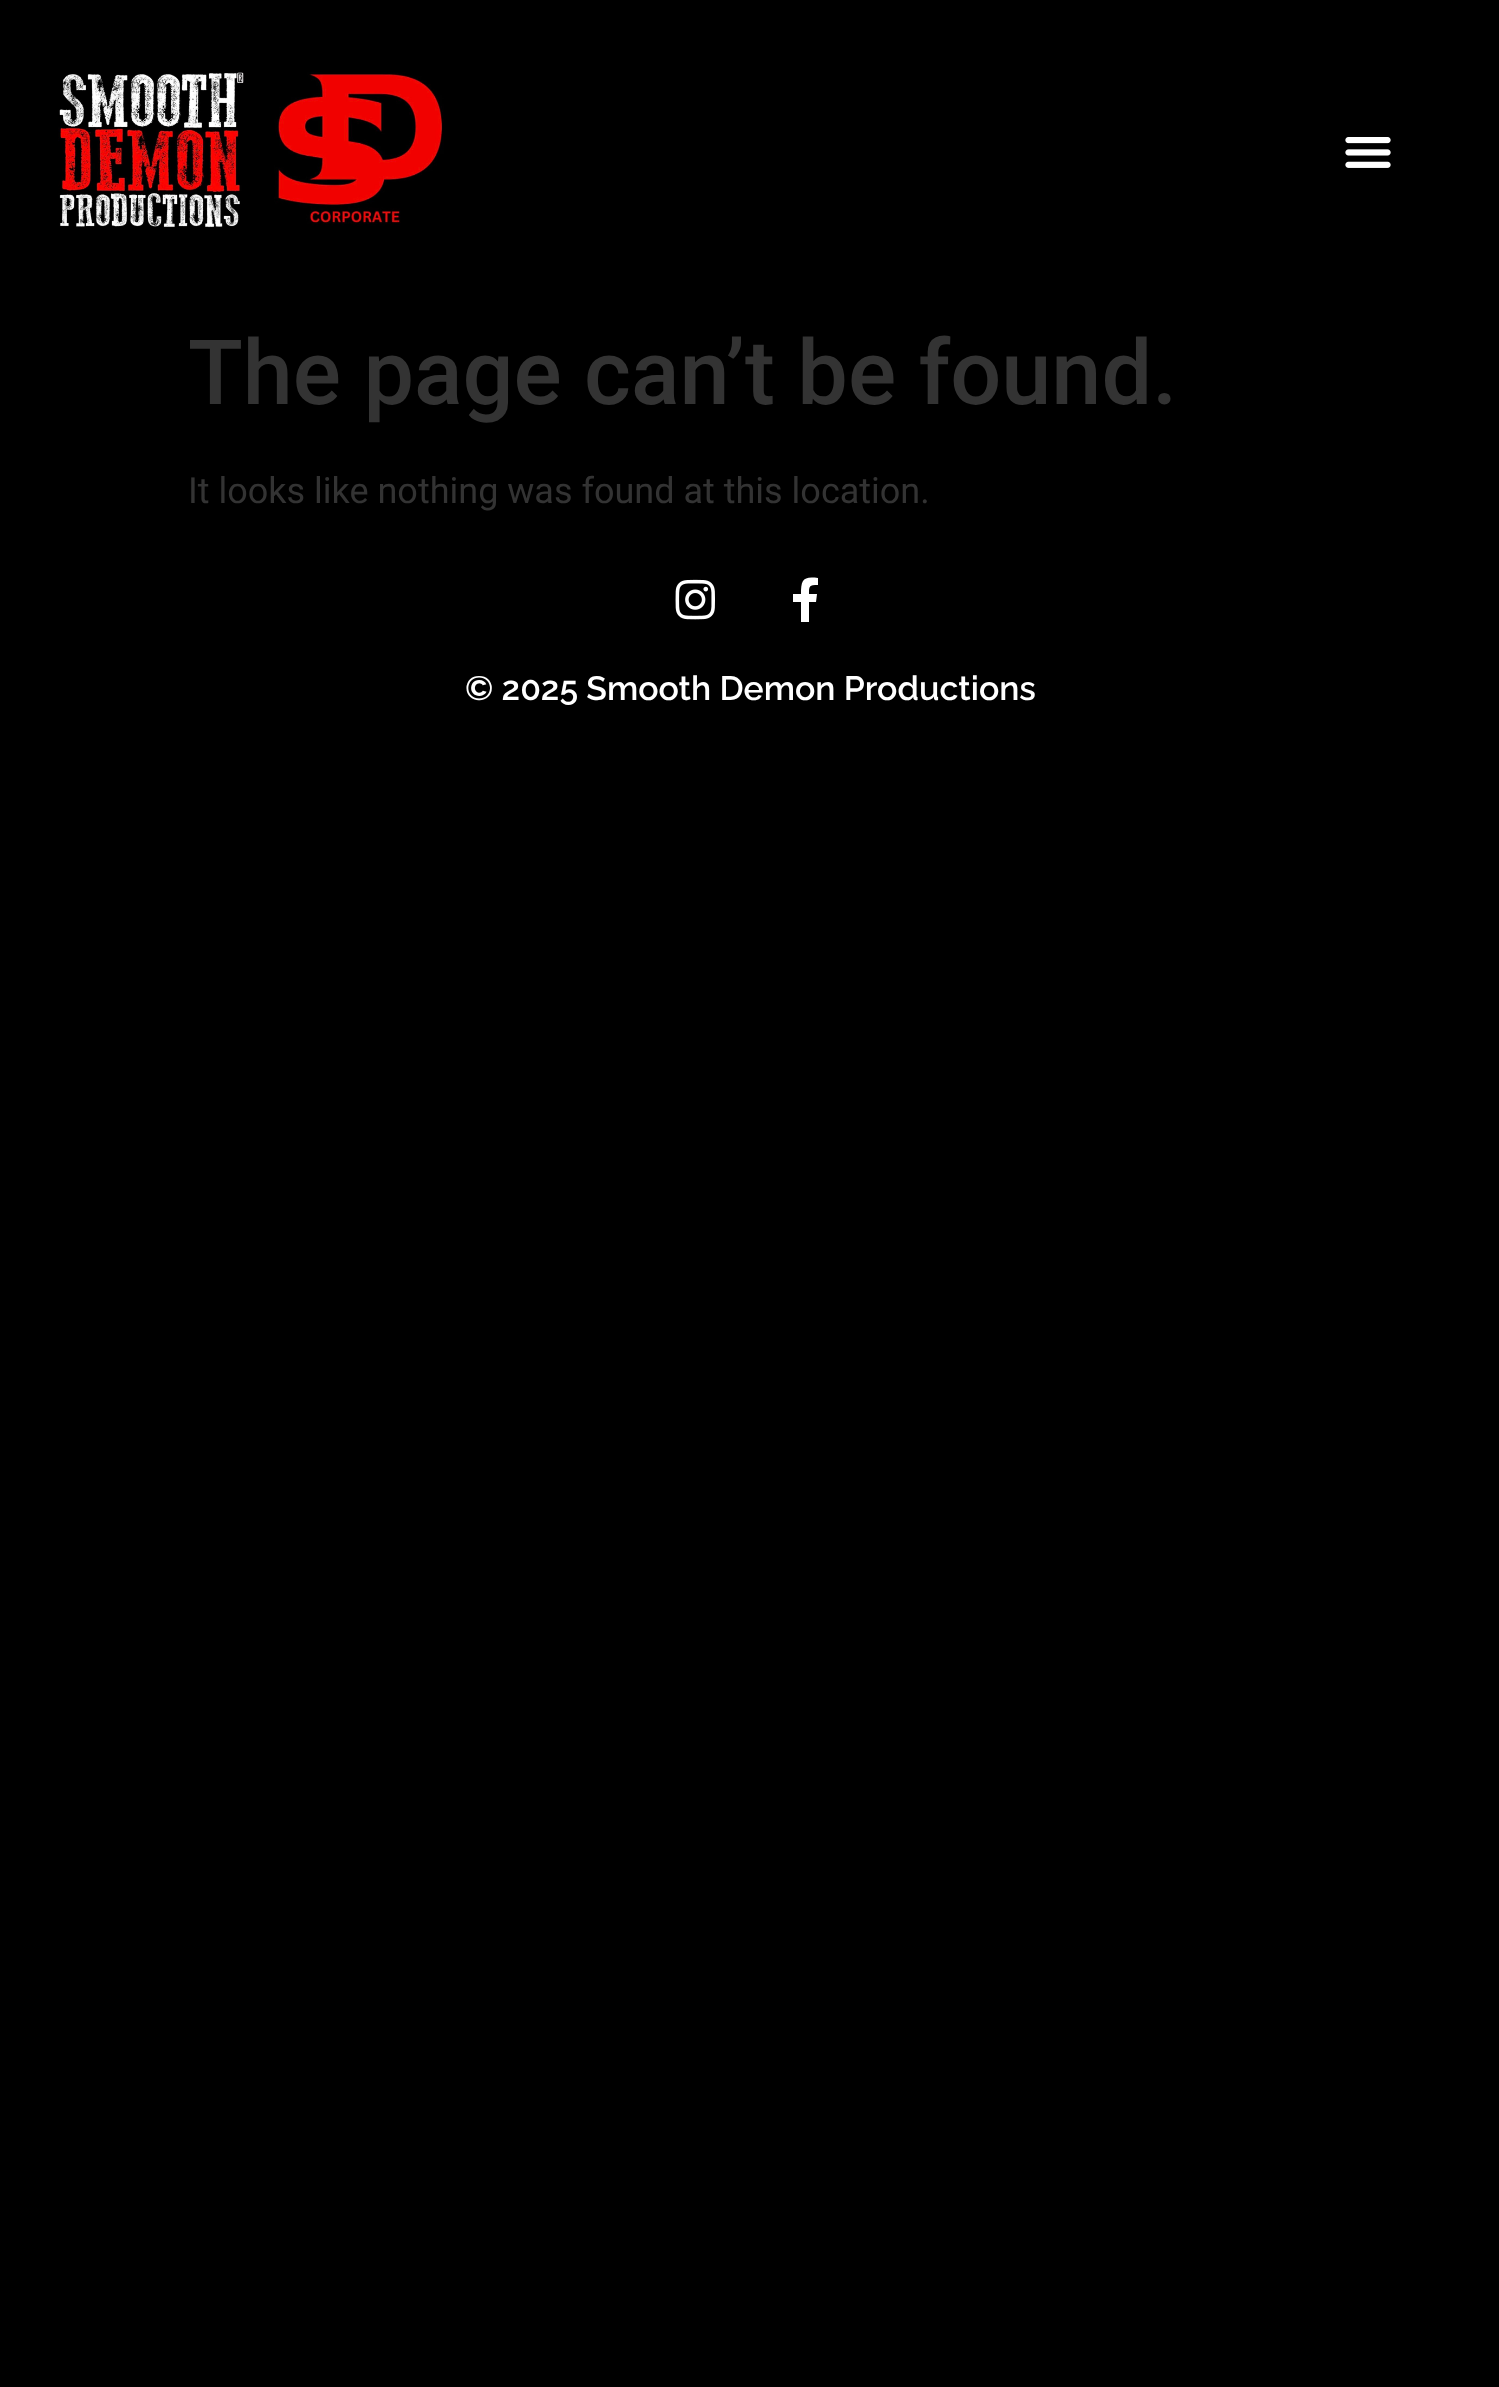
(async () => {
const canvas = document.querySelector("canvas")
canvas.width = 1499
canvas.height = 2387
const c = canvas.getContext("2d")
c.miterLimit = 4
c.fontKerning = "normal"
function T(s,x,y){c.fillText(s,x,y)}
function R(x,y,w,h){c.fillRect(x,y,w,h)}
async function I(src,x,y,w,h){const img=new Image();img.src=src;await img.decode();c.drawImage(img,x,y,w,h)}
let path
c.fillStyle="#000"
R(0,0,1499,2387)
await I("1.png",58,72,386,156)
await I("2.png",1345,137,46,31)
c.font="500 90px Roboto"
c.fillStyle="#333"
T("The page can’t be found.",188,404)
c.font="36px Roboto"
T("It looks like nothing was found at this location.",188,503)
await I("3.png",675,579,40,41)
c.fillStyle="#fff"
path = new Path2D("M816 602h-7v20h-8v-20h-8v-8h8c0-14 2-18 17-16v7c-9 0-9 1-9 9h8z")
c.fill(path)
c.font="600 33.75px Raleway"
T("© 2025 Smooth Demon Productions",465,700)
})()
